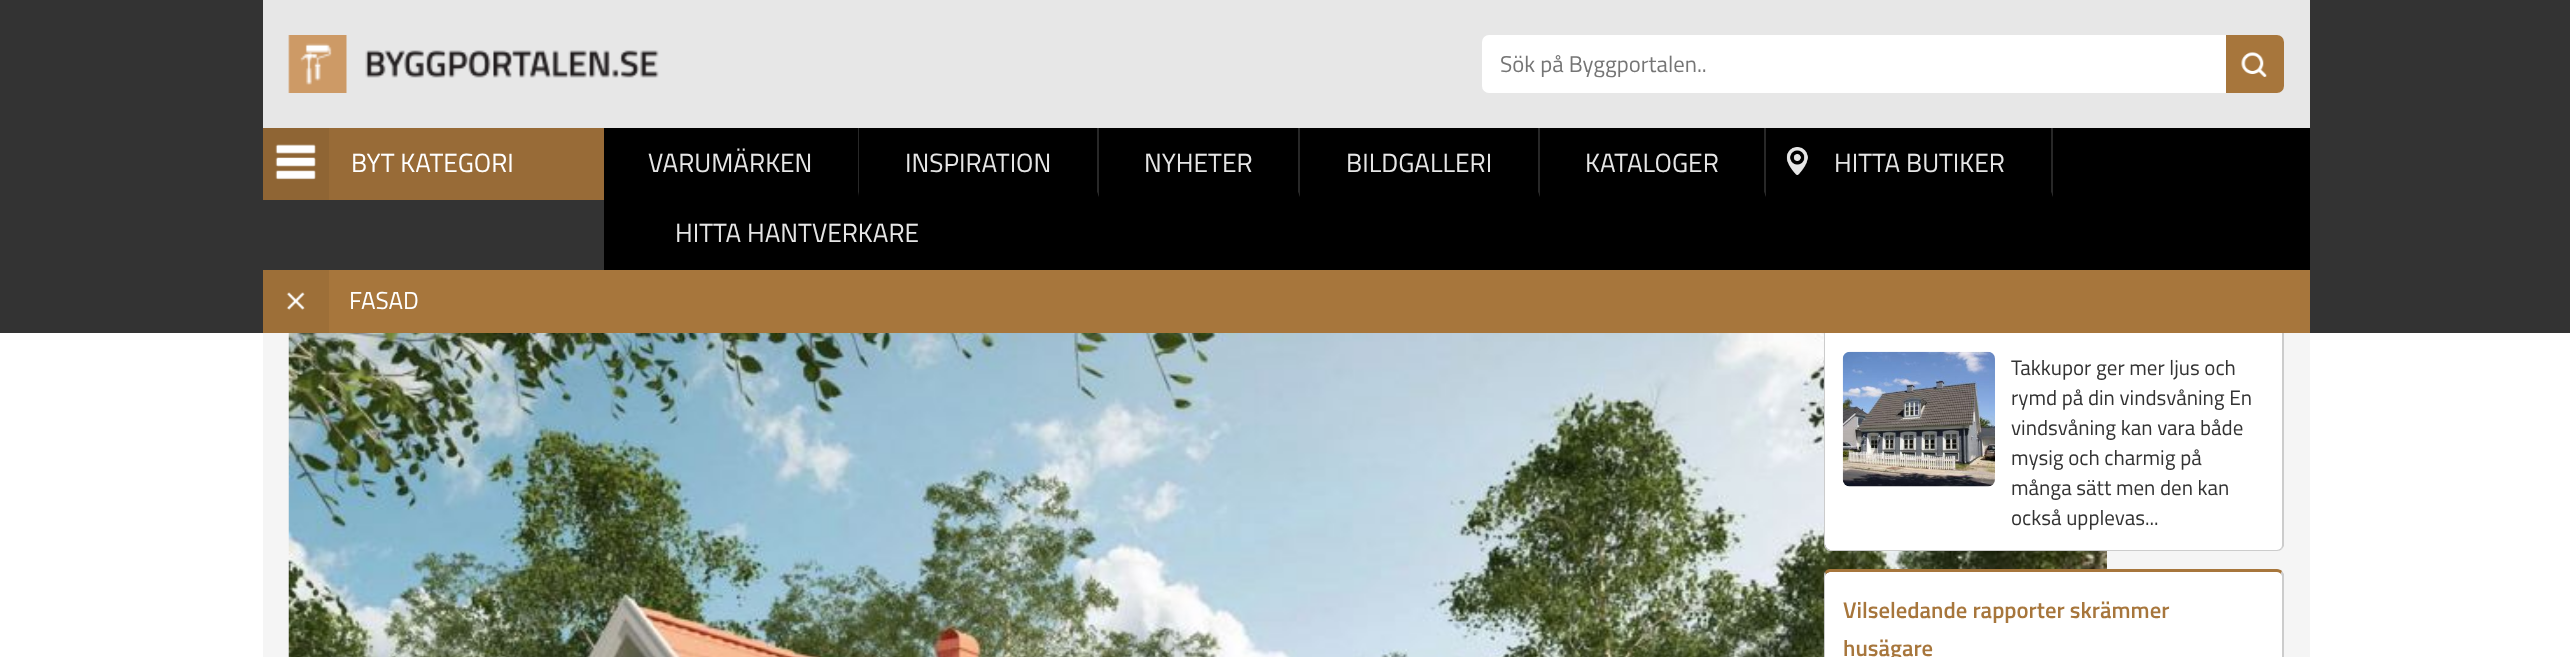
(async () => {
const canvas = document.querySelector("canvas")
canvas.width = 2570
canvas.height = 657
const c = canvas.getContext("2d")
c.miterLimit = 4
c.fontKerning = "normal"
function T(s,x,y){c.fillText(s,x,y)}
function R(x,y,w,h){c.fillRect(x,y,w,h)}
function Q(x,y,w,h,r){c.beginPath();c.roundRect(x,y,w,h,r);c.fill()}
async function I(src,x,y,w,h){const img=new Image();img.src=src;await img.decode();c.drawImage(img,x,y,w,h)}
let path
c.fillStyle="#fff"
R(0,0,2570,657)
c.fillStyle="#f5f5f5"
R(263,333,2047,324)
await I("6.png",288,333,1819,324)
c.fillStyle="#fff"
path = new Path2D("M1830 280h447c3 0 5 2 5 4v260c0 3-2 6-5 6h-447c-2 0-5-3-5-6v-260c0-2 3-4 5-4z")
c.fill(path)
c.fillStyle="#ccc"
path = new Path2D("M2284 546l-2 3l-1-1c1-1 1-2 1-4v-260l-1-2l1-3l2 3z")
c.fill(path)
path = new Path2D("M2282 549c-1 1-3 2-5 2h-447c-2 0-3-1-4-2l1-1c1 1 2 2 3 2h447c1 0 3-1 4-2z")
c.fill(path)
path = new Path2D("M1826 549c-1-1-2-3-2-5v-260c0-1 0-3 1-4l1 2l-1 2v261l2 3z")
c.fill(path)
c.fillStyle="#333"
R(0,0,2570,333)
c.fillStyle="#e7e7e7"
R(263,0,2047,128)
await I("1.png",288,35,371,58)
c.fillStyle="#fff"
Q(1482,35,802,58,7)
c.font="22.75px Titillium Web"
c.fillStyle="#757575"
T("Sök på Byggportalen..",1500,72)
c.fillStyle="#a7763c"
c.beginPath()
c.roundRect(2226,35,58,58,[0,7,7,0])
c.fill()
await I("2.png",2241,52,26,25)
c.fillStyle="#986b37"
R(329,128,275,72)
c.fillStyle="#8f6534"
R(263,128,66,72)
await I("3.png",275,144,41,36)
c.font="26.25px Titillium Web"
c.fillStyle="#fff"
T("BYT KATEGORI",351,172)
c.fillStyle="#000"
R(604,128,1706,142)
c.fillStyle="#282828"
path = new Path2D("M859 128v70l-1-6v-64z")
c.fill(path)
c.fillStyle="#000"
path = new Path2D("M859 198h-255v-6h254z")
c.fill(path)
c.fillStyle="#e6e6e6"
T("VARUMÄRKEN",648,172)
c.fillStyle="#282828"
path = new Path2D("M1099 128v70l-2-6v-64z")
c.fill(path)
c.fillStyle="#000"
path = new Path2D("M1099 198h-240v-6h238z")
c.fill(path)
c.fillStyle="#e6e6e6"
T("INSPIRATION",905,172)
c.fillStyle="#282828"
path = new Path2D("M1300 128v70l-2-6v-64z")
c.fill(path)
c.fillStyle="#000"
path = new Path2D("M1300 198h-201v-6h199z")
c.fill(path)
c.fillStyle="#e6e6e6"
T("NYHETER",1144,172)
c.fillStyle="#282828"
path = new Path2D("M1540 128v70l-2-6v-64z")
c.fill(path)
c.fillStyle="#000"
path = new Path2D("M1540 198h-240v-6h238z")
c.fill(path)
c.fillStyle="#e6e6e6"
T("BILDGALLERI",1346,172)
c.fillStyle="#282828"
path = new Path2D("M1766 128v70l-2-6v-64z")
c.fill(path)
c.fillStyle="#000"
path = new Path2D("M1766 198h-226v-6h224z")
c.fill(path)
c.fillStyle="#e6e6e6"
T("KATALOGER",1585,172)
await I("4.png",1786,147,22,28)
c.fillStyle="#282828"
path = new Path2D("M2053 128v70l-2-6v-64z")
c.fill(path)
c.fillStyle="#000"
path = new Path2D("M2053 198h-287v-6h285z")
c.fill(path)
c.fillStyle="#e6e6e6"
T("HITTA BUTIKER",1834,172)
T("HITTA HANTVERKARE",675,242)
c.fillStyle="#a7763c"
R(329,270,1981,63)
c.fillStyle="#9d6f38"
R(263,270,66,63)
await I("5.png",286,292,19,18)
c.font="24.5px Titillium Web"
c.fillStyle="#fff"
T("FASAD",349,309)
await I("7.png",1842,351,153,136)
c.font="21px Titillium Web"
c.fillStyle="#333"
T("Takkupor ger mer ljus och",2011,375)
T("rymd på din vindsvåning En",2011,405)
T("vindsvåning kan vara både",2011,435)
T("mysig och charmig på",2011,465)
T("många sätt men den kan",2011,495)
T("också upplevas...",2011,525)
c.fillStyle="#fff"
path = new Path2D("M1830 572h447c3 0 5 2 5 4v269c0 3-2 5-5 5h-447c-2 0-5-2-5-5v-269c0-2 3-4 5-4z")
c.fill(path)
c.fillStyle="#a7763c"
path = new Path2D("M1830 569c-2 0-4 1-5 3l1 2c1-1 3-2 4-2h447c2 0 3 1 4 2l1-3c-1-1-3-2-5-2z")
c.fill(path)
c.fillStyle="#ccc"
path = new Path2D("M2284 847l-2 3l-2-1c1-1 2-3 2-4v-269l-1-2l1-3l2 3z")
c.fill(path)
path = new Path2D("M1825 572c-1 1-1 2-1 4v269c0 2 1 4 2 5l1-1c-1-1-2-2-2-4v-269l1-2z")
c.fill(path)
c.font="600 22.75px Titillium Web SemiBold"
c.fillStyle="#a7763c"
T("Vilseledande rapporter skrämmer",1843,618)
T("husägare",1843,656)
})()
